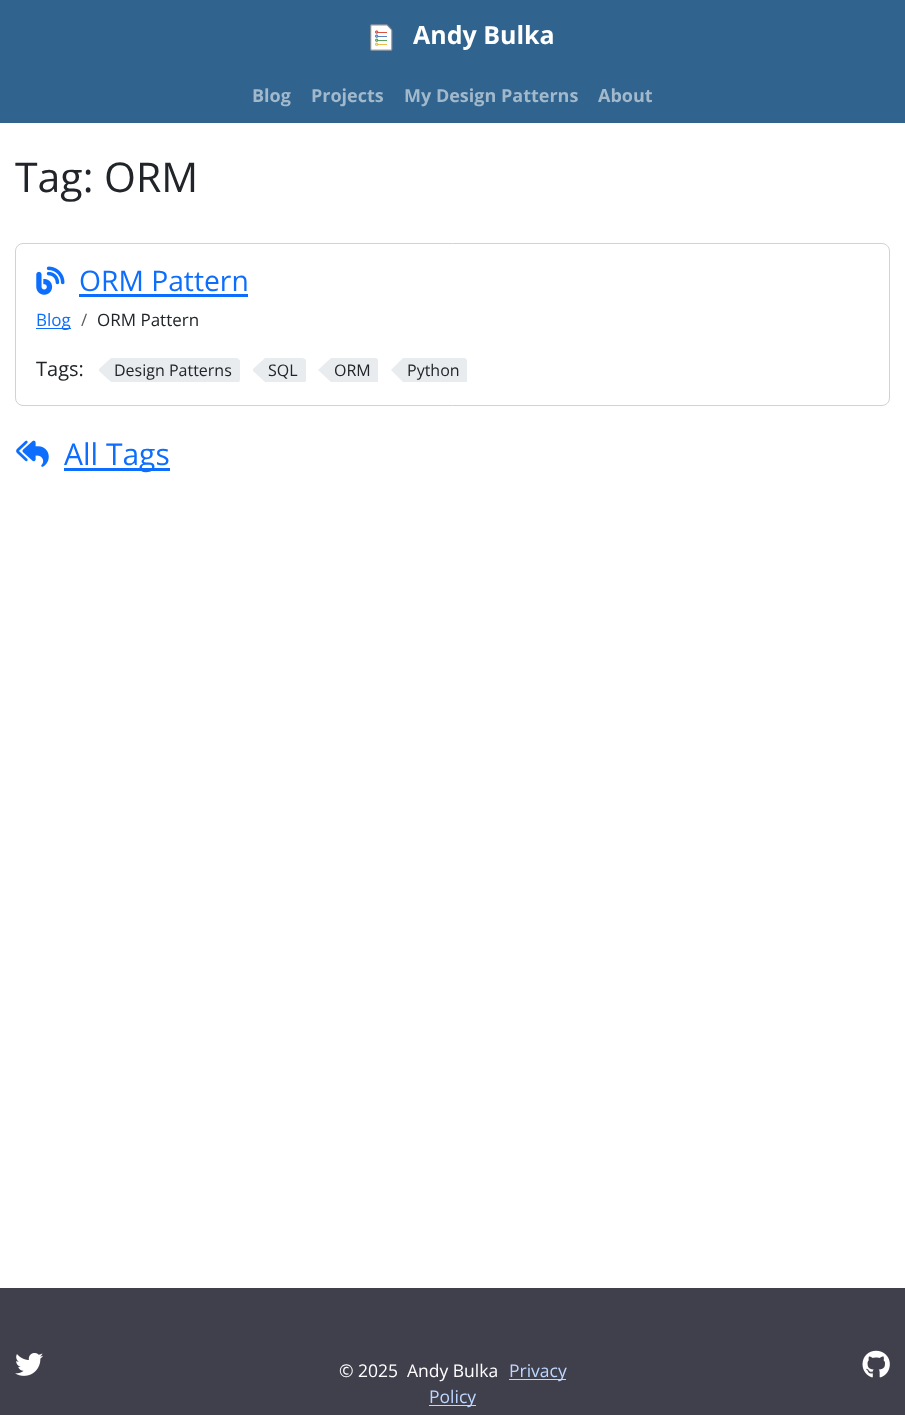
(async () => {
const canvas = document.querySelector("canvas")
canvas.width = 905
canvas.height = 1415
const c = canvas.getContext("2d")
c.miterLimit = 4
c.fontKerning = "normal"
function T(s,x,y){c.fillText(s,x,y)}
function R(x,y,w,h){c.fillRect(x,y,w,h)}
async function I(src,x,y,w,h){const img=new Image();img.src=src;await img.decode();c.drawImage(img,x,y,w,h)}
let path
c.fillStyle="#fff"
R(0,0,905,1415)
c.fillStyle="#30638e"
R(0,0,905,123)
await I("1.png",370,24,23,27)
c.font="bold 25px Open Sans"
c.fillStyle="#fff"
T("Andy Bulka",413,44)
c.font="bold 18px Open Sans"
c.fillStyle="#a2b9cc"
T("Blog",252,102)
T("Projects",311,102)
T("My Design Patterns",404,102)
T("About",598,102)
c.font="41px Open Sans"
c.fillStyle="#212529"
T("Tag: ORM",15,192)
c.beginPath()
c.roundRect(15.5,243.5,874,162,7.5)
c.strokeStyle="#d2d2d2"
c.stroke()
await I("2.png",36,266,29,29)
c.font="28.25px Open Sans"
c.fillStyle="#0d6efd"
T("ORM Pattern",79,291)
R(79,294,169,3)
R(36,328,35,1)
c.font="17px Open Sans"
T("Blog",36,326)
c.fillStyle="#595c5f"
T("/",81,326)
c.fillStyle="#212529"
T("ORM Pattern",97,326)
c.font="20px Open Sans"
T("Tags:",36,376)
c.fillStyle="#e9ecef"
path = new Path2D("M99 371v-2l12-11h125c2 0 4 2 4 3v19l-1 2h-128z")
c.fill(path)
c.font="16px Open Sans"
c.fillStyle="#212529"
T("Design Patterns",114,376)
c.fillStyle="#e9ecef"
path = new Path2D("M253 371v-2l12-11h37c2 0 3 1 4 2v21l-1 1h-40z")
c.fill(path)
c.fillStyle="#212529"
T("SQL",268,376)
c.fillStyle="#e9ecef"
path = new Path2D("M318 370l13-12h44c2 0 3 1 3 2v21v1h-47z")
c.fill(path)
c.fillStyle="#212529"
T("ORM",334,376)
c.fillStyle="#e9ecef"
path = new Path2D("M391 370l12-12h62l2 2v21v1h-64z")
c.fill(path)
c.fillStyle="#212529"
T("Python",407,376)
await I("3.png",16,440,33,27)
c.fillStyle="#0d6efd"
R(64,468,106,3)
c.font="30px Open Sans"
T("All Tags",64,465)
c.fillStyle="#403f4c"
R(0,1288,905,127)
await I("4.png",15,1353,28,23)
c.font="17.5px Open Sans"
c.fillStyle="#fff"
T("© 2025",339,1377)
T("Andy Bulka",407,1377)
c.fillStyle="#bdd7fe"
R(509,1379,57,1)
T("Privacy",509,1377)
R(429,1405,47,1)
T("Policy",429,1403)
await I("5.png",862,1350,28,28)
})()
